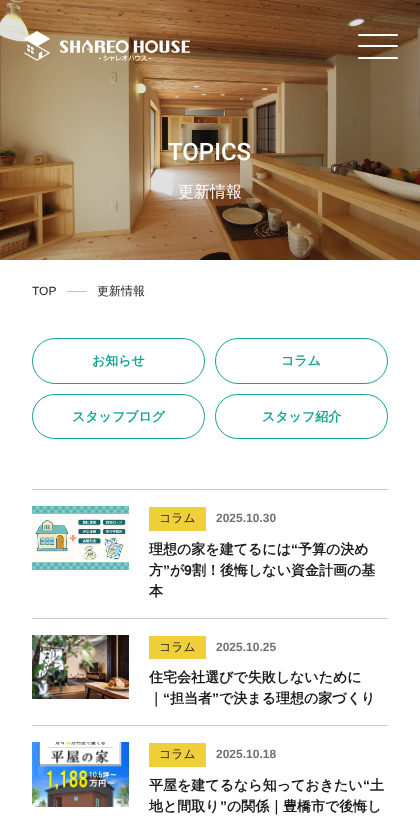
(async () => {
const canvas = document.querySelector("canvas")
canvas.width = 420
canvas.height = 824
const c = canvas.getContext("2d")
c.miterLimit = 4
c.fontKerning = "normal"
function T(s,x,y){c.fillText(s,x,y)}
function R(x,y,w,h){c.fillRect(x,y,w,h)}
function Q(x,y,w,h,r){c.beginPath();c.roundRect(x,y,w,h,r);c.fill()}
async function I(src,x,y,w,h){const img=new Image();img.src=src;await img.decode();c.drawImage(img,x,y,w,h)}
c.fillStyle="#fff"
R(0,0,420,824)
await I("2.png",0,0,420,260)
await I("1.png",24,31,166,30)
Q(358,34,40,2,1)
Q(358,45,40,2,1)
Q(358,57,40,2,1)
c.font="500 24px Roboto"
T("TOPICS",168,160)
c.font="500 16px WenQuanYi Zen Hei"
T("更新情報",178,197)
c.font="12px Liberation Sans"
c.fillStyle="#1a1a1a"
T("TOP",32,295)
c.fillStyle="#c5bfb9"
R(67,291,20,1)
c.font="500 12px WenQuanYi Zen Hei"
c.fillStyle="#1a1a1a"
T("更新情報",97,295)
c.beginPath()
c.roundRect(32.5,338.5,172,45,22.5)
c.strokeStyle="#13a392"
c.stroke()
c.font="bold 13px WenQuanYi Zen Hei"
c.fillStyle="#13a392"
T("お知らせ",92,365)
c.beginPath()
c.roundRect(215.5,338.5,172,45,22.5)
c.stroke()
T("コラム",281,365)
c.beginPath()
c.roundRect(32.5,394.5,172,44,22)
c.stroke()
T("スタッフブログ",72,421)
c.beginPath()
c.roundRect(215.5,394.5,172,44,22)
c.stroke()
T("スタッフ紹介",262,421)
c.fillStyle="#cbcbcb"
R(32,489,356,1)
R(32,618,356,1)
await I("3.png",32,506,97,64)
c.fillStyle="#efd03a"
R(149,507,57,24)
c.font="500 12px WenQuanYi Zen Hei"
c.fillStyle="#1a1a1a"
T("コラム",159,522)
c.font="bold 12px Liberation Sans"
c.fillStyle="#717071"
T("2025.10.30",216,522)
c.font="bold 14px WenQuanYi Zen Hei"
c.fillStyle="#1a1a1a"
T("理想の家を建てるには",149,554)
c.font="bold 14px Liberation Sans"
T("“",291,554)
c.font="bold 14px WenQuanYi Zen Hei"
T("予算の決め",298,554)
T("方",149,575)
c.font="bold 14px Liberation Sans"
T("”",163,575)
c.font="bold 14px WenQuanYi Zen Hei"
T("が",170,575)
c.font="bold 14px Liberation Sans"
T("9",184,575)
c.font="bold 14px WenQuanYi Zen Hei"
T("割！後悔しない資金計画の基",192,575)
T("本",149,596)
c.fillStyle="#cbcbcb"
R(32,725,356,1)
await I("4.png",32,635,97,64)
c.fillStyle="#efd03a"
R(149,636,57,23)
c.font="500 12px WenQuanYi Zen Hei"
c.fillStyle="#1a1a1a"
T("コラム",159,651)
c.font="bold 12px Liberation Sans"
c.fillStyle="#717071"
T("2025.10.25",216,651)
c.font="bold 14px WenQuanYi Zen Hei"
c.fillStyle="#1a1a1a"
T("住宅会社選びで失敗しないために",149,682)
T("｜",149,703)
c.font="bold 14px Liberation Sans"
T("“",163,703)
c.font="bold 14px WenQuanYi Zen Hei"
T("担当者",170,703)
c.font="bold 14px Liberation Sans"
T("”",212,703)
c.font="bold 14px WenQuanYi Zen Hei"
T("で決まる理想の家づくり",219,703)
await I("5.png",32,742,97,65)
c.fillStyle="#efd03a"
R(149,743,57,24)
c.font="500 12px WenQuanYi Zen Hei"
c.fillStyle="#1a1a1a"
T("コラム",159,758)
c.font="bold 12px Liberation Sans"
c.fillStyle="#717071"
T("2025.10.18",216,758)
c.font="bold 14px WenQuanYi Zen Hei"
c.fillStyle="#1a1a1a"
T("平屋を建てるなら知っておきたい",149,790)
c.font="bold 14px Liberation Sans"
T("“",363,790)
c.font="bold 14px WenQuanYi Zen Hei"
T("土",370,790)
T("地と間取り",149,811)
c.font="bold 14px Liberation Sans"
T("”",220,811)
c.font="bold 14px WenQuanYi Zen Hei"
T("の関係｜豊橋市で後悔し",227,811)
})()
